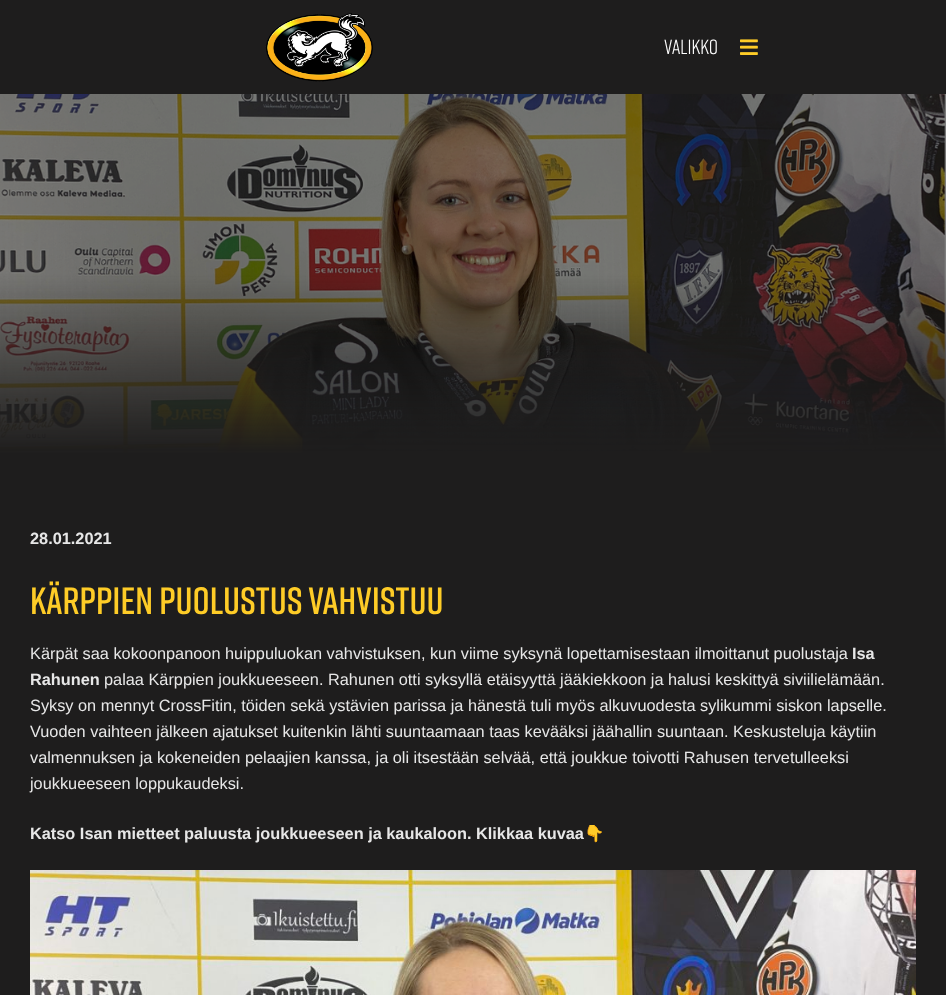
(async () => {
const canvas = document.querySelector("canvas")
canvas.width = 946
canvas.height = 995
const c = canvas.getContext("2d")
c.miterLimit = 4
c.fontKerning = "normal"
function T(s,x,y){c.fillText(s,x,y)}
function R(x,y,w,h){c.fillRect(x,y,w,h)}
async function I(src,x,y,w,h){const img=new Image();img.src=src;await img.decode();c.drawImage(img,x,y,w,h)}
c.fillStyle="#1e1d1d"
R(0,0,946,995)
await I("1.png",265,13,108,69)
c.font="20.5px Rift"
c.fillStyle="#fff"
T("VALIKKO",664,54)
await I("2.png",740,39,18,16)
await I("3.png",0,94,946,360)
c.font="bold 16.32px Liberation Sans"
c.fillStyle="#e7e7e7"
T("28.01.2021",30,544)
c.font="600 38px Rift"
c.fillStyle="#fecc27"
T("Kärppien puolustus vahvistuu",30,614)
c.font="16.32px Liberation Sans"
c.fillStyle="#e7e7e7"
T("Kärpät saa kokoonpanoon huippuluokan vahvistuksen, kun viime syksynä lopettamisestaan ilmoittanut puolustaja",30,659)
c.font="bold 16.32px Liberation Sans"
T("Isa",852,659)
T("Rahunen",30,685)
c.font="16.32px Liberation Sans"
T("palaa Kärppien joukkueeseen. Rahunen otti syksyllä etäisyyttä jääkiekkoon ja halusi keskittyä siviilielämään.",104,685)
T("Syksy on mennyt CrossFitin, töiden sekä ystävien parissa ja hänestä tuli myös alkuvuodesta sylikummi siskon lapselle.",30,711)
T("Vuoden vaihteen jälkeen ajatukset kuitenkin lähti suuntaamaan taas kevääksi jäähallin suuntaan. Keskusteluja käytiin",30,737)
T("valmennuksen ja kokeneiden pelaajien kanssa, ja oli itsestään selvää, että joukkue toivotti Rahusen tervetulleeksi",30,763)
T("joukkueeseen loppukaudeksi.",30,789)
c.font="bold 16.32px Liberation Sans"
T("Katso Isan mietteet paluusta joukkueeseen ja kaukaloon. Klikkaa kuvaa",30,839)
c.font="bold 16.32px Noto Color Emoji"
T("👇",584,839)
await I("4.png",30,870,886,125)
})()
